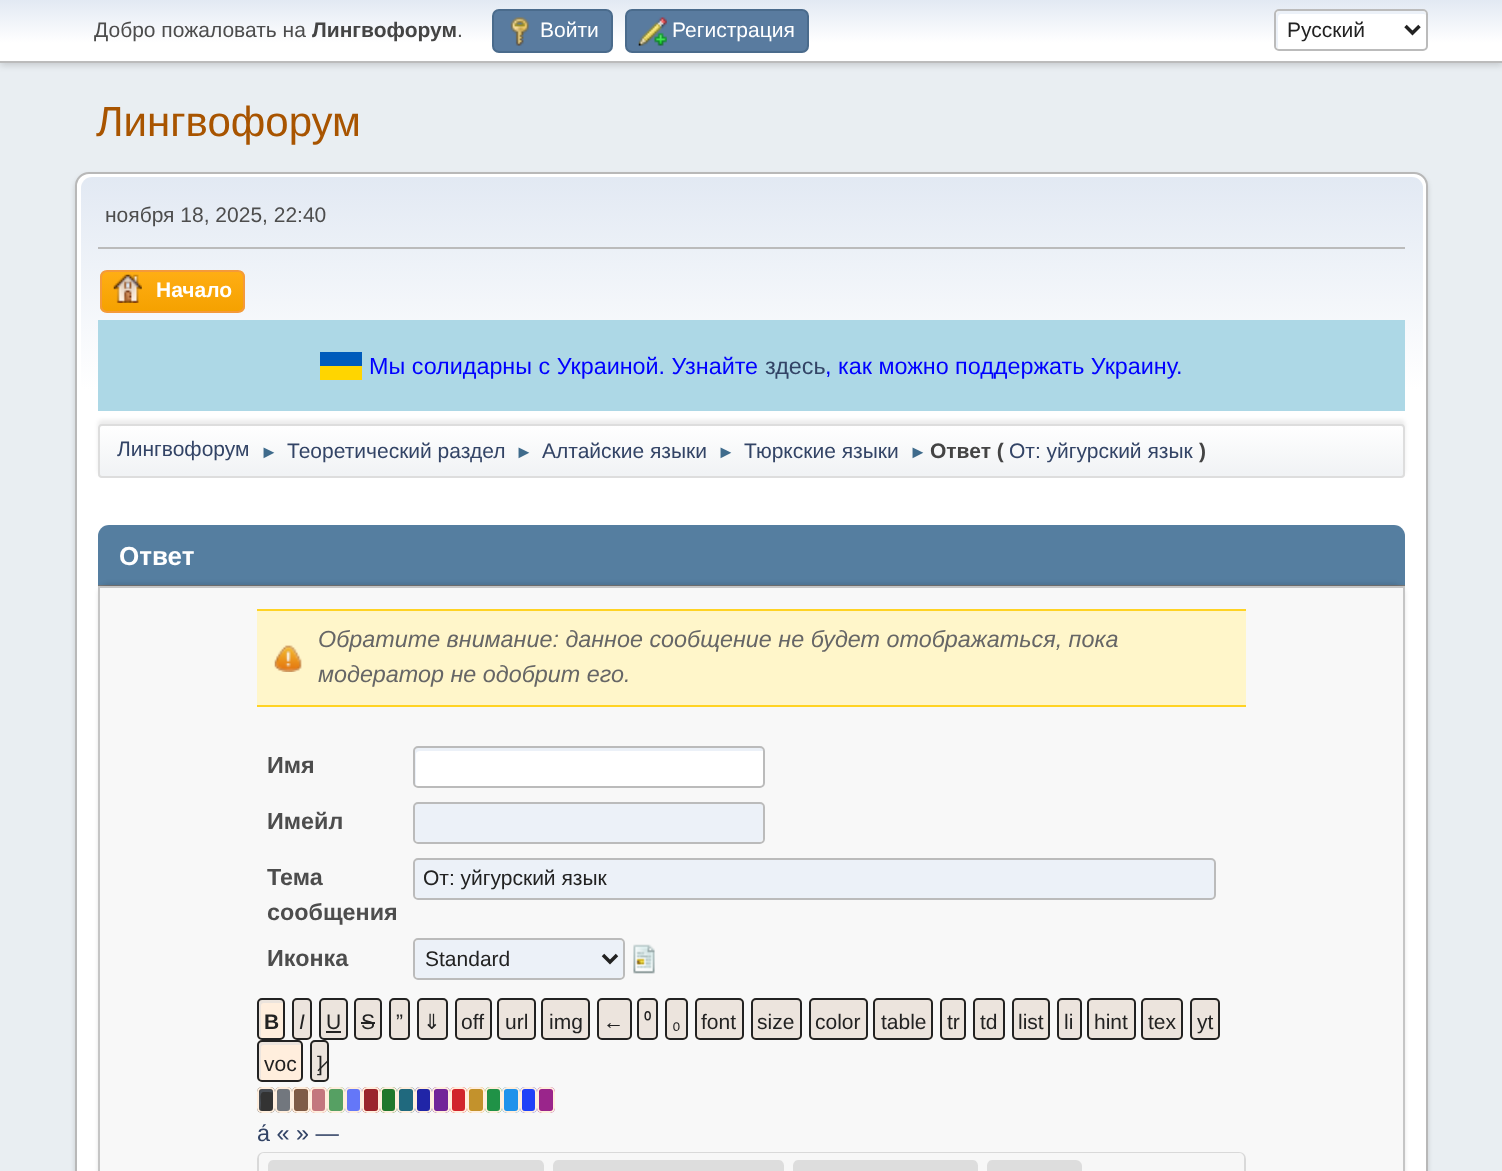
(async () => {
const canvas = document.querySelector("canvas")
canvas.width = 1502
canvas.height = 1171
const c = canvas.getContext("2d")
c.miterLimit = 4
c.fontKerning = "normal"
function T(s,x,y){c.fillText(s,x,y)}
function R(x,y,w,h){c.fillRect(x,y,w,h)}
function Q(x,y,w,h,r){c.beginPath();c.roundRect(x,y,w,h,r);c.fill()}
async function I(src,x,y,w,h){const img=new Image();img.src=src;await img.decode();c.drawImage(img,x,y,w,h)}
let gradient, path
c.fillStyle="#e9eef2"
R(0,0,1502,1171)
c.fillStyle="#00000029"
c.filter="blur(3.5px)"
c.beginPath()
c.rect(0,2,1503,63)
c.fill()
c.filter="none"
gradient = c.createLinearGradient(752,0,752,61)
gradient.addColorStop(0,"#e2e9f3")
gradient.addColorStop(.7,"#fff")
c.fillStyle = gradient
R(0,0,1502,61)
c.fillStyle="#bbb"
R(0,61,1502,2)
c.font="21px Liberation Sans"
c.fillStyle="#4d4d4d"
T("Добро пожаловать на",94,37)
c.font="bold 21px Liberation Sans"
c.fillStyle="#444"
T("Лингвофорум",312,37)
c.font="21px Liberation Sans"
c.fillStyle="#4d4d4d"
T(".",457,37)
c.fillStyle="#597b9f"
c.beginPath()
c.roundRect(493,10,119,42,6)
c.fill()
c.strokeStyle="#4a6b8c"
c.lineWidth=2
c.stroke()
await I("1.png",510,17,19,29)
c.fillStyle="#fff"
T("Войти",540,37)
c.fillStyle="#597b9f"
c.beginPath()
c.roundRect(626,10,182,42,6)
c.fill()
c.stroke()
await I("2.png",638,17,29,29)
c.fillStyle="#fff"
T("Регистрация",672,37)
Q(1274,9,154,42,5)
c.fillStyle="#ecf1f8"
path = new Path2D("M1281 14h143l2 1c0-2-2-4-4-4h-142c-2 0-4 2-4 4v30c0 1 1 3 2 3v-30c0-2 1-4 3-4z")
c.fill(path)
c.beginPath()
c.roundRect(1275,10,152,40,4)
c.strokeStyle="#bbb"
c.stroke()
path = new Path2D("M1405.5 26l7 7l7-7")
c.strokeStyle="#222"
c.lineWidth=3.5
c.stroke(path)
c.fillStyle="#222"
T("Русский",1287,37)
c.font="42px Liberation Sans"
c.fillStyle="#a85400"
T("Лингвофорум",96,136)
c.fillStyle="#00000024"
c.filter="blur(2.5px)"
c.beginPath()
c.roundRect(75,175,1353,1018,14)
c.fill()
c.filter="none"
c.fillStyle="#fff"
c.beginPath()
c.roundRect(76,173,1351,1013,13)
c.fill()
c.strokeStyle="#b8b8b8"
c.lineWidth=2
c.stroke()
gradient = c.createLinearGradient(752,177,752,481)
gradient.addColorStop(0,"#e2e9f3")
gradient.addColorStop(.7,"#fff")
c.fillStyle = gradient
c.beginPath()
c.roundRect(81,177,1342,304,[11,11,0,0])
c.fill()
c.fillStyle="#bbb"
R(98,247,1307,2)
c.font="21px Liberation Sans"
c.fillStyle="#4d4d4d"
T("ноября 18, 2025, 22:40",105,222)
c.save()
c.beginPath()
c.roundRect(100,270,145,43,7)
c.clip()
gradient = c.createLinearGradient(172,271,172,312)
gradient.addColorStop(0,"#ffae14")
gradient.addColorStop(1,"#f5a100")
c.fillStyle = gradient
R(100,271,145,41)
c.restore()
c.beginPath()
c.roundRect(101,271,143,41,6)
c.strokeStyle="#f49a3a"
c.stroke()
await I("3.png",113,274,29,29)
c.font="bold 21px Liberation Sans"
c.fillStyle="#fff"
T("Начало",156,297)
c.fillStyle="#add8e6"
R(98,320,1307,91)
c.fillStyle="#005bbb"
R(320,352,42,14)
c.font="23.35px Liberation Sans"
c.fillStyle="#00f"
T("Мы солидарны с Украиной. Узнайте",369,374)
c.fillStyle="#346"
T("здесь",765,374)
c.fillStyle="#00f"
T(", как можно поддержать Украину.",825,374)
c.fillStyle="#ffd500"
R(320,366,42,14)
c.fillStyle="#00000014"
c.filter="blur(2px)"
c.beginPath()
c.roundRect(98,420,1307,54,4)
c.fill()
c.filter="none"
c.save()
c.beginPath()
c.roundRect(98,424,1307,54,4)
c.clip()
gradient = c.createLinearGradient(752,425,752,476)
gradient.addColorStop(0,"#fff")
gradient.addColorStop(.95,"#f1f3f5")
c.fillStyle = gradient
R(98,425,1307,51)
c.restore()
c.beginPath()
c.roundRect(99,425,1305,52,3)
c.strokeStyle="#ddd"
c.stroke()
c.font="21px Liberation Sans"
c.fillStyle="#346"
T("Лингвофорум",117,456)
c.font="18px Liberation Sans"
c.fillStyle="#3f6b8c"
T("►",260,458)
c.font="21px Liberation Sans"
c.fillStyle="#346"
T("Теоретический раздел",287,458)
c.font="18px Liberation Sans"
c.fillStyle="#3f6b8c"
T("►",515,458)
c.font="21px Liberation Sans"
c.fillStyle="#346"
T("Алтайские языки",542,458)
c.font="18px Liberation Sans"
c.fillStyle="#3f6b8c"
T("►",717,458)
c.font="21px Liberation Sans"
c.fillStyle="#346"
T("Тюркские языки",744,458)
c.font="18px Liberation Sans"
c.fillStyle="#3f6b8c"
T("►",909,458)
c.font="bold 21px Liberation Sans"
c.fillStyle="#444"
T("Ответ (",930,458)
c.font="21px Liberation Sans"
c.fillStyle="#346"
T("От: уйгурский язык",1009,458)
c.font="bold 21px Liberation Sans"
c.fillStyle="#444"
T(")",1199,458)
c.fillStyle="#557ea0"
c.beginPath()
c.roundRect(98,525,1307,61,[11,11,0,0])
c.fill()
c.fillStyle="#777"
R(98,585,1307,1)
c.font="bold 26px Liberation Sans"
c.fillStyle="#fff"
T("Ответ",119,565)
c.fillStyle="#0000001a"
c.filter="blur(2px)"
c.beginPath()
c.roundRect(98,583,1307,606,12)
c.fill()
c.filter="none"
c.fillStyle="#f8f8f8"
c.beginPath()
c.rect(99,587,1305,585)
c.fill()
c.strokeStyle="#c5c5c5"
c.stroke()
c.fillStyle="#fff6ca"
R(257,611,989,94)
c.fillStyle="#ffd324"
R(257,609,989,2)
R(257,705,989,2)
c.font="italic 23.35px Liberation Sans"
c.fillStyle="#666"
T("Обратите внимание: данное сообщение не будет отображаться, пока",318,647)
await I("4.png",274,645,28,27)
T("модератор не одобрит его.",318,682)
c.font="bold 23.35px Liberation Sans"
c.fillStyle="#4d4d4d"
T("Имя",267,773)
c.fillStyle="#fff"
Q(413,746,352,42,5)
c.fillStyle="#ecf1f8"
path = new Path2D("M420 751h343c0-2-2-4-4-4h-340c-2 0-4 2-4 4v31c0 1 0 2 1 3v-31c0-2 2-3 4-3z")
c.fill(path)
c.beginPath()
c.roundRect(414,747,350,40,4)
c.strokeStyle="#bbb"
c.stroke()
c.fillStyle="#4d4d4d"
T("Имейл",267,829)
c.fillStyle="#fff"
Q(413,802,352,42,5)
c.fillStyle="#ecf1f8"
path = new Path2D("M419 803c-2 0-4 2-4 4v31c0 1 0 2 1 3c1 0 2 1 3 1h340c2 0 4-2 4-4v-31c0-2-2-4-4-4z")
c.fill(path)
c.beginPath()
c.roundRect(414,803,350,40,4)
c.stroke()
c.fillStyle="#4d4d4d"
T("Тема",267,885)
T("сообщения",267,920)
c.fillStyle="#fff"
Q(413,858,803,42,5)
c.fillStyle="#ecf1f8"
path = new Path2D("M419 859c-2 0-4 2-4 4v31c0 1 0 2 1 3c1 0 2 1 3 1h792c2 0 4-2 4-4v-31c0-2-2-4-4-4z")
c.fill(path)
c.beginPath()
c.roundRect(414,859,801,40,4)
c.stroke()
c.font="21px Liberation Sans"
c.fillStyle="#222"
T("От: уйгурский язык",423,885)
c.font="bold 23.35px Liberation Sans"
c.fillStyle="#4d4d4d"
T("Иконка",267,966)
c.fillStyle="#fff"
Q(413,938,212,42,5)
c.fillStyle="#ecf1f8"
path = new Path2D("M419 940c-5 0-4 6-4 9v20c0 3-1 9 4 9h200c5 0 4-6 4-9v-20c0-3 1-9-4-9z")
c.fill(path)
c.beginPath()
c.roundRect(414,939,210,40,4)
c.stroke()
path = new Path2D("M603 955l7 7l7-7")
c.strokeStyle="#222"
c.lineWidth=3.5
c.stroke(path)
c.font="21px Liberation Sans"
c.fillStyle="#222"
T("Standard",425,966)
await I("5.png",633,944,22,30)
c.fillStyle="#fed"
Q(257,998,28,42,5)
c.fillStyle="#ece4dd"
path = new Path2D("M264 1003h18c1 0 1.5 0 2 .5v-.5c0-2-2-4-4-4h-17c-2 0-4 2-4 4v31c0 1.5 1 3 2 3.5v-31.5c0-2 1-3 3-3z")
c.fill(path)
c.beginPath()
c.roundRect(258,999,26,40,4)
c.lineWidth=2
c.stroke()
c.font="bold 21px Liberation Sans"
c.fillStyle="#222"
T("B",264,1029)
c.fillStyle="#fed"
Q(292,998,20,42,5)
c.fillStyle="#ece4dd"
path = new Path2D("M298 999c-5 0-4 6-4 9v15.5c0 15-1.5 15 12 14.5c5 0 4-6 4-9v-21c0-3 1-9-4-9z")
c.fill(path)
c.beginPath()
c.roundRect(293,999,18,40,4)
c.stroke()
c.font="italic 21px Liberation Sans"
c.fillStyle="#222"
T("I",299,1029)
c.fillStyle="#ece4dd"
path = new Path2D("M324 999c-2 0-4 2-4 4v31c0 1.5 1 3 2 3.5l2 .5h19c2 0 4-2 4-4v-31c0-2-2-4-4-4z")
c.fill(path)
c.beginPath()
c.roundRect(320,999,27,40,4)
c.stroke()
c.font="21px Liberation Sans"
c.fillStyle="#222"
T("U",326,1029)
R(326,1031,15,2)
c.fillStyle="#fed"
Q(354,998,28,42,5)
c.fillStyle="#ece4dd"
path = new Path2D("M359 999c-2 0-4 2-4 4v31c0 1.5 1 3 2 3.5l2 .5h17c2 0 4-2 4-4v-31c0-2-2-4-4-4z")
c.fill(path)
c.beginPath()
c.roundRect(355,999,26,40,4)
c.stroke()
c.fillStyle="#222"
T("S",361,1029)
R(361,1022,14,2)
c.fillStyle="#fed"
Q(389,998,21,42,5)
c.fillStyle="#ece4dd"
path = new Path2D("M394 999c-2 0-4 2-4 4v31c0 1.5 1 3 2 3.5l2 .5h10c2 0 4-2 4-4v-31c0-2-2-4-4-4z")
c.fill(path)
c.beginPath()
c.roundRect(390,999,19,40,4)
c.stroke()
c.fillStyle="#222"
T("”",396,1029)
c.fillStyle="#fed"
Q(417,998,31,42,5)
c.fillStyle="#ece4dd"
path = new Path2D("M422 999c-2 0-4 2-4 4v31c0 1.5 1 3 2 3.5l2 .5h20c2 0 4-2 4-4v-31c0-2-2-4-4-4z")
c.fill(path)
c.beginPath()
c.roundRect(418,999,29,40,4)
c.stroke()
c.font="21px DejaVu Sans"
c.fillStyle="#222"
T("⇓",423,1029)
c.fillStyle="#fed"
Q(455,998,37,42,5)
c.fillStyle="#ece4dd"
path = new Path2D("M461 999c-2 0-4 2-4 4v31c0 1 .5 2 1 2.5c.5 1 2 1.5 3 1.5h25c2 0 4-2 4-4v-31c0-2-2-4-4-4z")
c.fill(path)
c.beginPath()
c.roundRect(456,999,35,40,4)
c.stroke()
c.font="21px Liberation Sans"
c.fillStyle="#222"
T("off",461,1029)
c.fillStyle="#fed"
Q(497,998,39,42,5)
c.fillStyle="#ece4dd"
path = new Path2D("M503 999c-2 0-4 2-4 4v31c0 1 .5 2 1 2.5c.5 1 2 1.5 3 1.5h27c2 0 4-2 4-4v-31c0-2-2-4-4-4z")
c.fill(path)
c.beginPath()
c.roundRect(498,999,37,40,4)
c.stroke()
c.fillStyle="#222"
T("url",505,1029)
c.fillStyle="#fed"
Q(541,998,49,42,5)
c.fillStyle="#ece4dd"
path = new Path2D("M547 999c-6 0-4 11-4 14v16c0 9 0 9 10 9h31c5 0 4-6 4-9v-21c0-3 1-9-4-9z")
c.fill(path)
c.beginPath()
c.roundRect(542,999,47,40,4)
c.stroke()
c.fillStyle="#222"
T("img",549,1029)
c.fillStyle="#fed"
Q(597,998,35,42,5)
c.fillStyle="#ece4dd"
path = new Path2D("M603 999c-2 0-4 2-4 4v31c0 1 .5 2 1 2.5c.5 1 2 1.5 3 1.5h23c2 0 4-2 4-4v-31c0-2-2-4-4-4z")
c.fill(path)
c.beginPath()
c.roundRect(598,999,33,40,4)
c.stroke()
c.fillStyle="#222"
T("←",603,1029)
c.fillStyle="#fed"
Q(637,998,21,42,5)
c.fillStyle="#ece4dd"
path = new Path2D("M643 999c-5 0-4 6-4 9v15.5c0 15-2 15 13 14.5c5 0 4-6 4-9v-21c0-3 1-9-4-9z")
c.fill(path)
c.beginPath()
c.roundRect(638,999,19,40,4)
c.stroke()
c.font="21px Noto Sans"
c.fillStyle="#222"
T("⁰",644,1029)
c.fillStyle="#fed"
Q(665,998,23,42,5)
c.fillStyle="#ece4dd"
path = new Path2D("M671 999c-2 0-4 2-4 4v31c0 1 .5 2 1 2.5c.5 1 2 1.5 3 1.5h11c2 0 4-2 4-4v-31c0-2-2-4-4-4z")
c.fill(path)
c.beginPath()
c.roundRect(666,999,21,40,4)
c.stroke()
c.font="21px Liberation Sans"
c.fillStyle="#222"
T("₀",672,1029)
c.fillStyle="#fed"
Q(695,998,49,42,5)
c.fillStyle="#ece4dd"
path = new Path2D("M701 999c-6 0-4 11-4 14v16c0 9 0 9 10 9h31c5 0 4-6 4-9v-21c0-3 1-9-4-9z")
c.fill(path)
c.beginPath()
c.roundRect(696,999,47,40,4)
c.stroke()
c.fillStyle="#222"
T("font",701,1029)
c.fillStyle="#fed"
Q(751,998,51,42,5)
c.fillStyle="#ece4dd"
path = new Path2D("M757 999c-2 0-3 1-4 2v23c0 13-2 14 11 14h32c5 0 4-6 4-9v-21c0-3 1-9-4-9z")
c.fill(path)
c.beginPath()
c.roundRect(752,999,49,40,4)
c.stroke()
c.fillStyle="#222"
T("size",757,1029)
c.fillStyle="#fed"
Q(809,998,59,42,5)
c.fillStyle="#ece4dd"
path = new Path2D("M814 999l-2 1c-4 2-2 10-2 13v16c0 11 2 9 12 9h40c5 0 4-6 4-9v-21c0-3 1-9-4-9z")
c.fill(path)
c.beginPath()
c.roundRect(810,999,57,40,4)
c.stroke()
c.fillStyle="#222"
T("color",815,1029)
c.fillStyle="#fed"
Q(873,998,60,42,5)
c.fillStyle="#ece4dd"
path = new Path2D("M879 999l-2 1c-4 2-2 10-2 13v16c0 11 2 9 12 9h40c5 0 4-6 4-9v-21c0-3 1-9-4-9z")
c.fill(path)
c.beginPath()
c.roundRect(874,999,58,40,4)
c.stroke()
c.fillStyle="#222"
T("table",881,1029)
c.fillStyle="#fed"
Q(940,998,26,42,5)
c.fillStyle="#ece4dd"
path = new Path2D("M946 999c-2 0-4 2-4 4v31c0 1 .5 2 1 2.5c.5 1 2 1.5 3 1.5h14c2 0 4-2 4-4v-31c0-2-2-4-4-4z")
c.fill(path)
c.beginPath()
c.roundRect(941,999,24,40,4)
c.stroke()
c.fillStyle="#222"
T("tr",947,1029)
c.fillStyle="#fed"
Q(973,998,32,42,5)
c.fillStyle="#ece4dd"
path = new Path2D("M979 999c-2 0-4 2-4 4v31c0 1 .5 2 1 2.5c.5 1 2 1.5 3 1.5h20c2 0 4-2 4-4v-31c0-2-2-4-4-4z")
c.fill(path)
c.beginPath()
c.roundRect(974,999,30,40,4)
c.stroke()
c.fillStyle="#222"
T("td",980,1029)
c.fillStyle="#fed"
Q(1012,998,38,42,5)
c.fillStyle="#ece4dd"
path = new Path2D("M1017 999c-2 0-4 2-4 4v31c0 1.5 1 3 2 3.5l2 .5h27c2 0 4-2 4-4v-31c0-2-2-4-4-4z")
c.fill(path)
c.beginPath()
c.roundRect(1013,999,36,40,4)
c.stroke()
c.fillStyle="#222"
T("list",1018,1029)
c.fillStyle="#fed"
Q(1057,998,25,42,5)
c.fillStyle="#ece4dd"
path = new Path2D("M1063 999c-2 0-4 2-4 4v31c0 1 .5 2 1 2.5c.5 1 2 1.5 3 1.5h13c2 0 4-2 4-4v-31c0-2-2-4-4-4z")
c.fill(path)
c.beginPath()
c.roundRect(1058,999,23,40,4)
c.stroke()
c.fillStyle="#222"
T("li",1064,1029)
c.fillStyle="#fed"
Q(1087,998,49,42,5)
c.fillStyle="#ece4dd"
path = new Path2D("M1093 999c-6 0-4 11-4 14v16c0 9 0 9 10 9h31c5 0 4-6 4-9v-21c0-3 1-9-4-9z")
c.fill(path)
c.beginPath()
c.roundRect(1088,999,47,40,4)
c.stroke()
c.fillStyle="#222"
T("hint",1094,1029)
c.fillStyle="#fed"
Q(1141,998,42,42,5)
c.fillStyle="#ece4dd"
path = new Path2D("M1147 999c-2 0-4 2-4 4v31c0 1 .5 2 1 2.5c.5 1 2 1.5 3 1.5h30c2 0 4-2 4-4v-31c0-2-2-4-4-4z")
c.fill(path)
c.beginPath()
c.roundRect(1142,999,40,40,4)
c.stroke()
c.fillStyle="#222"
T("tex",1148,1029)
c.fillStyle="#fed"
Q(1190,998,30,42,5)
c.fillStyle="#ece4dd"
path = new Path2D("M1196 999c-2 0-4 2-4 4v31c0 1.5 1 3 2 3.5l2 .5h18c2 0 4-2 4-4v-31c0-2-2-4-4-4z")
c.fill(path)
c.beginPath()
c.roundRect(1191,999,28,40,4)
c.stroke()
c.fillStyle="#222"
T("yt",1197,1029)
c.fillStyle="#fed"
Q(257,1040,46,42,5)
c.fillStyle="#ece4dd"
path = new Path2D("M264 1045h37c0-2-2-4-4-4h-34c-2 0-4 2-4 4v31c0 1 1 3 2 3v-31c0-2 1-3 3-3z")
c.fill(path)
c.beginPath()
c.roundRect(258,1041,44,40,4)
c.stroke()
c.fillStyle="#222"
T("voc",264,1071)
c.fillStyle="#fed"
Q(310,1040,19,42,5)
c.fillStyle="#ece4dd"
path = new Path2D("M316 1041c-5 0-4 6-4 9v15.5c0 13.5-2 15 11 14.5c5 0 4-6 4-9v-21c0-3 1-9-4-9z")
c.fill(path)
c.beginPath()
c.roundRect(311,1041,17,40,4)
c.stroke()
c.fillStyle="#222"
T("]̷",317,1071)
c.fillStyle="#333"
Q(257,1087,18,26,5)
c.fillStyle="#494e55"
path = new Path2D("M264 1092c3 0 6-.5 9 .5c-.5-2-2-3.5-4-3.5h-6c-2 0-4 2-4 4v14c0 1.5 .5 2.5 1.5 3l.5-7l-.5-6.5l.5-2.5c.5-1.5 1.5-2 3-2z")
c.fill(path)
c.beginPath()
c.roundRect(258,1088,16,24,4)
c.strokeStyle="#fed"
c.stroke()
c.fillStyle="#666"
Q(275,1087,17,26,5)
c.fillStyle="#72777e"
path = new Path2D("M281 1089c-3.5 0-4 3.5-4 6.5v7c0 9 .5 9 10 8.5c5.5 0 4-7.5 4-11c0-3 1.5-11-4-11z")
c.fill(path)
c.beginPath()
c.roundRect(276,1088,15,24,4)
c.stroke()
c.fillStyle="#742"
Q(292,1087,18,26,5)
c.fillStyle="#7f5c47"
path = new Path2D("M298 1089c-3.5 0-4 3.5-4 6.5v12.5c1 4 7 3 10 3c5.5 0 4-7.5 4-11c0-3 1.5-11-4-11z")
c.fill(path)
c.beginPath()
c.roundRect(293,1088,16,24,4)
c.stroke()
c.fillStyle="#c66"
Q(310,1087,17,26,5)
c.fillStyle="#c3777e"
path = new Path2D("M316 1089c-3.5 0-4 3.5-4 6.5v7c0 9 .5 9 10 8.5c5.5 0 4-7.5 4-11c0-3 1.5-11-4-11z")
c.fill(path)
c.beginPath()
c.roundRect(311,1088,15,24,4)
c.stroke()
c.fillStyle="#494"
Q(327,1087,18,26,5)
c.fillStyle="#56a063"
path = new Path2D("M333 1089c-3.5 0-4 3.5-4 6.5v12.5c1 4 7 3 10 3c5.5 0 4-7.5 4-11c0-3 1.5-11-4-11z")
c.fill(path)
c.beginPath()
c.roundRect(328,1088,16,24,4)
c.stroke()
c.fillStyle="#56f"
Q(345,1087,17,26,5)
c.fillStyle="#6477f8"
path = new Path2D("M351 1089c-3.5 0-4 3.5-4 6.5v7c0 9 .5 9 10 8.5c5.5 0 4-7.5 4-11c0-3 1.5-11-4-11z")
c.fill(path)
c.beginPath()
c.roundRect(346,1088,15,24,4)
c.stroke()
c.fillStyle="#900"
Q(362,1087,18,26,5)
c.fillStyle="#9a252c"
path = new Path2D("M368 1089c-3.5 0-4 3.5-4 6.5v12.5c1 4 7 3 10 3c5.5 0 4-7.5 4-11c0-3 1.5-11-4-11z")
c.fill(path)
c.beginPath()
c.roundRect(363,1088,16,24,4)
c.stroke()
c.fillStyle="#060"
Q(380,1087,17,26,5)
c.fillStyle="#20772c"
path = new Path2D("M386 1089c-3.5 0-4 3.5-4 6.5v7c0 9 .5 9 10 8.5c5.5 0 4-7.5 4-11c0-3 1.5-11-4-11z")
c.fill(path)
c.beginPath()
c.roundRect(381,1088,15,24,4)
c.stroke()
c.fillStyle="#056"
Q(397,1087,18,26,5)
c.fillStyle="#20697e"
path = new Path2D("M403 1089c-3.5 0-4 3.5-4 6.5v12.5c1 4 7 3 10 3c5.5 0 4-7.5 4-11c0-3 1.5-11-4-11z")
c.fill(path)
c.beginPath()
c.roundRect(398,1088,16,24,4)
c.stroke()
c.fillStyle="#009"
Q(415,1087,17,26,5)
c.fillStyle="#2025a7"
path = new Path2D("M421 1089c-3.5 0-4 3.5-4 6.5v7c0 9 .5 9 10 8.5c5.5 0 4-7.5 4-11c0-3 1.5-11-4-11z")
c.fill(path)
c.beginPath()
c.roundRect(416,1088,15,24,4)
c.stroke()
c.fillStyle="#608"
Q(432,1087,18,26,5)
c.fillStyle="#722599"
path = new Path2D("M438 1089c-3.5 0-4 3.5-4 6.5v12.5c1 4 7 3 10 3c5.5 0 4-7.5 4-11c0-3 1.5-11-4-11z")
c.fill(path)
c.beginPath()
c.roundRect(433,1088,16,24,4)
c.stroke()
c.fillStyle="#d00"
Q(450,1087,17,26,5)
c.fillStyle="#d1252c"
path = new Path2D("M456 1089c-3.5 0-4 3.5-4 6.5v7c0 9 .5 9 10 8.5c5.5 0 4-7.5 4-11c0-3 1.5-11-4-11z")
c.fill(path)
c.beginPath()
c.roundRect(451,1088,15,24,4)
c.stroke()
c.fillStyle="#c80"
Q(467,1087,18,26,5)
c.fillStyle="#c3922c"
path = new Path2D("M473 1089c-3.5 0-4 3.5-4 6.5v12.5c1 4 7 3 10 3c5.5 0 4-7.5 4-11c0-3 1.5-11-4-11z")
c.fill(path)
c.beginPath()
c.roundRect(468,1088,16,24,4)
c.stroke()
c.fillStyle="#082"
Q(485,1087,17,26,5)
c.fillStyle="#209247"
path = new Path2D("M491 1089c-3.5 0-4 3.5-4 6.5v7c0 9 .5 9 10 8.5c5.5 0 4-7.5 4-11c0-3 1.5-11-4-11z")
c.fill(path)
c.beginPath()
c.roundRect(486,1088,15,24,4)
c.stroke()
c.fillStyle="#08e"
Q(502,1087,18,26,5)
c.fillStyle="#2092eb"
path = new Path2D("M508 1089c-3.5 0-4 3.5-4 6.5v12.5c1 4 7 3 10 3c5.5 0 4-7.5 4-11c0-3 1.5-11-4-11z")
c.fill(path)
c.beginPath()
c.roundRect(503,1088,16,24,4)
c.stroke()
c.fillStyle="#02f"
Q(520,1087,17,26,5)
c.fillStyle="#2041f8"
path = new Path2D("M526 1089c-3.5 0-4 3.5-4 6.5v7c0 9 .5 9 10 8.5c5.5 0 4-7.5 4-11c0-3 1.5-11-4-11z")
c.fill(path)
c.beginPath()
c.roundRect(521,1088,15,24,4)
c.stroke()
c.fillStyle="#907"
Q(537,1087,18,26,5)
c.fillStyle="#9a258b"
path = new Path2D("M543 1089c-3.5 0-4 3.5-4 6.5v12.5c1 4 7 3 10 3c5.5 0 4-7.5 4-11c0-3 1.5-11-4-11z")
c.fill(path)
c.beginPath()
c.roundRect(538,1088,16,24,4)
c.stroke()
c.font="23.35px Liberation Sans"
c.fillStyle="#346"
T("á « » —",257,1141)
path = new Path2D("M264 1153h975c3.5 0 6 2.5 6 6v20h-987v-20c0-3.5 2.5-6 6-6z")
c.strokeStyle="#d9d9d9"
c.stroke(path)
c.fillStyle="#f7f7f7"
path = new Path2D("M264 1153h975c3 0 5 2 5 5v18h-985v-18c0-3 2-5 5-5z")
c.fill(path)
c.fillStyle="#ddd"
path = new Path2D("M273 1160h266c3 0 5 3 5 6v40c0 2-2 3-5 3h-266c-3 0-5-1-5-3v-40c0-3 2-6 5-6z")
c.fill(path)
path = new Path2D("M558 1160h221c3 0 5 3 5 6v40c0 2-2 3-5 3h-221c-3 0-5-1-5-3v-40c0-3 2-6 5-6z")
c.fill(path)
path = new Path2D("M798 1160h175c3 0 5 3 5 6v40c0 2-2 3-5 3h-175c-3 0-5-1-5-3v-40c0-3 2-6 5-6z")
c.fill(path)
path = new Path2D("M992 1160h84c3 0 6 3 6 6v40c0 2-3 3-6 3h-84c-3 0-5-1-5-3v-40c0-3 2-6 5-6z")
c.fill(path)
})()
